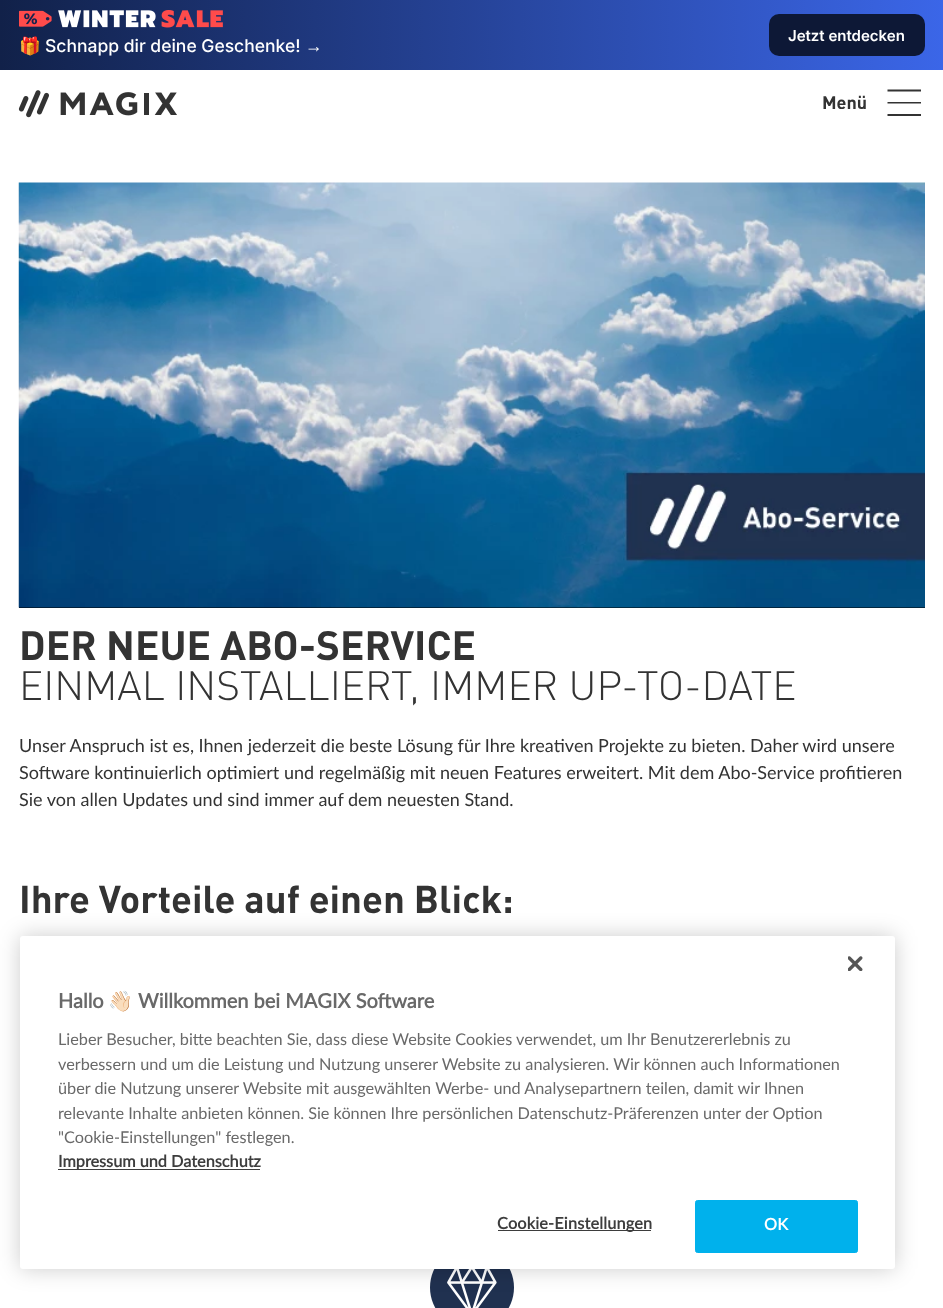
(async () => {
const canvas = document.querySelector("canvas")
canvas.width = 943
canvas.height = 1308
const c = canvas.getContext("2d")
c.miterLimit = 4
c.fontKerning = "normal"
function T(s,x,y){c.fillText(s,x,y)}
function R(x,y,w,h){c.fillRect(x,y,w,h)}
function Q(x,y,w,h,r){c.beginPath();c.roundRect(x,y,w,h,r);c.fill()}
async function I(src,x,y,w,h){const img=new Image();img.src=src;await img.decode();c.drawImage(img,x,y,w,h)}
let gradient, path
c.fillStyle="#fff"
R(0,0,943,1308)
gradient = c.createLinearGradient(0,35,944,35)
gradient.addColorStop(0,"#112149")
gradient.addColorStop(1,"#3b66e8")
c.fillStyle = gradient
R(0,0,943,70)
await I("1.png",19,10,204,18)
c.font="17.5px Noto Color Emoji"
c.fillStyle="#fff"
T("🎁",19,52)
c.font="500 17.5px Inter"
T("Schnapp dir deine Geschenke!",45,52)
c.font="17.5px Liberation Sans"
T("→",305,52)
c.fillStyle="#0d1836"
Q(769,14,156,42,10)
c.font="600 15px Inter"
c.fillStyle="#fff"
T("Jetzt entdecken",788,41)
await I("2.png",18,90,159,28)
c.font="bold 18px DIN"
c.fillStyle="#333"
T("Menü",822,109)
path = new Path2D("M887.5 89.5h33.5v2h-33.5zm0 12.5h33.5v1.5h-33.5zm0 12h33.5v2h-33.5z")
c.fill(path)
c.fillStyle="#000"
R(19,607,906,1)
await I("3.png",18,182,907,426)
c.font="bold 40.5px DIN"
c.fillStyle="#333"
T("DER NEUE ABO-SERVICE",19,660)
c.font="300 40.5px DIN"
T("EINMAL INSTALLIERT, IMMER UP-TO-DATE",19,700)
c.font="18px Lato"
T("Unser Anspruch ist es, Ihnen jederzeit die beste Lösung für Ihre kreativen Projekte zu bieten. Daher wird unsere",19,752)
T("Software kontinuierlich optimiert und regelmäßig mit neuen Features erweitert. Mit dem Abo-Service profitieren",19,779)
T("Sie von allen Updates und sind immer auf dem neuesten Stand.",19,806)
c.font="bold 38.25px DIN"
T("Ihre Vorteile auf einen Blick:",19,913)
await I("4.png",430,1269,84,39)
c.fillStyle="#00000033"
c.filter="blur(11px)"
c.beginPath()
c.roundRect(20,936,875,333,3)
c.fill()
c.filter="none"
c.fillStyle="#fff"
Q(20,936,875,333,3)
await I("5.png",848,956,15,15)
c.font="bold 20px Lato"
c.fillStyle="#696969"
T("Hallo",58,1008)
c.font="bold 20px Noto Color Emoji"
T("👋🏻",108,1008)
c.font="bold 20px Lato"
T("Willkommen bei MAGIX Software",138,1008)
c.font="16.25px Lato"
T("Lieber Besucher, bitte beachten Sie, dass diese Website Cookies verwendet, um Ihr Benutzererlebnis zu",58,1045)
T("verbessern und um die Leistung und Nutzung unserer Website zu analysieren. Wir können auch Informationen",58,1070)
T("über die Nutzung unserer Website mit ausgewählten Werbe- und Analysepartnern teilen, damit wir Ihnen",58,1094)
T("relevante Inhalte anbieten können. Sie können Ihre persönlichen Datenschutz-Präferenzen unter der Option",58,1119)
T("\"Cookie-Einstellungen\" festlegen.",58,1143)
c.fillStyle="#3d3d3d"
R(58,1169,202,1)
c.font="bold 16.25px Lato"
T("Impressum und Datenschutz",58,1167)
R(498,1230,153,1)
c.letterSpacing="0.2px"
T("Cookie-Einstellungen",497,1229)
c.fillStyle="#00b1ec"
c.beginPath()
c.roundRect(695.5,1200.5,162,52,2)
c.fill()
c.strokeStyle="#00b1ec"
c.stroke()
c.fillStyle="#fff"
T("OK",764,1230)
})()
